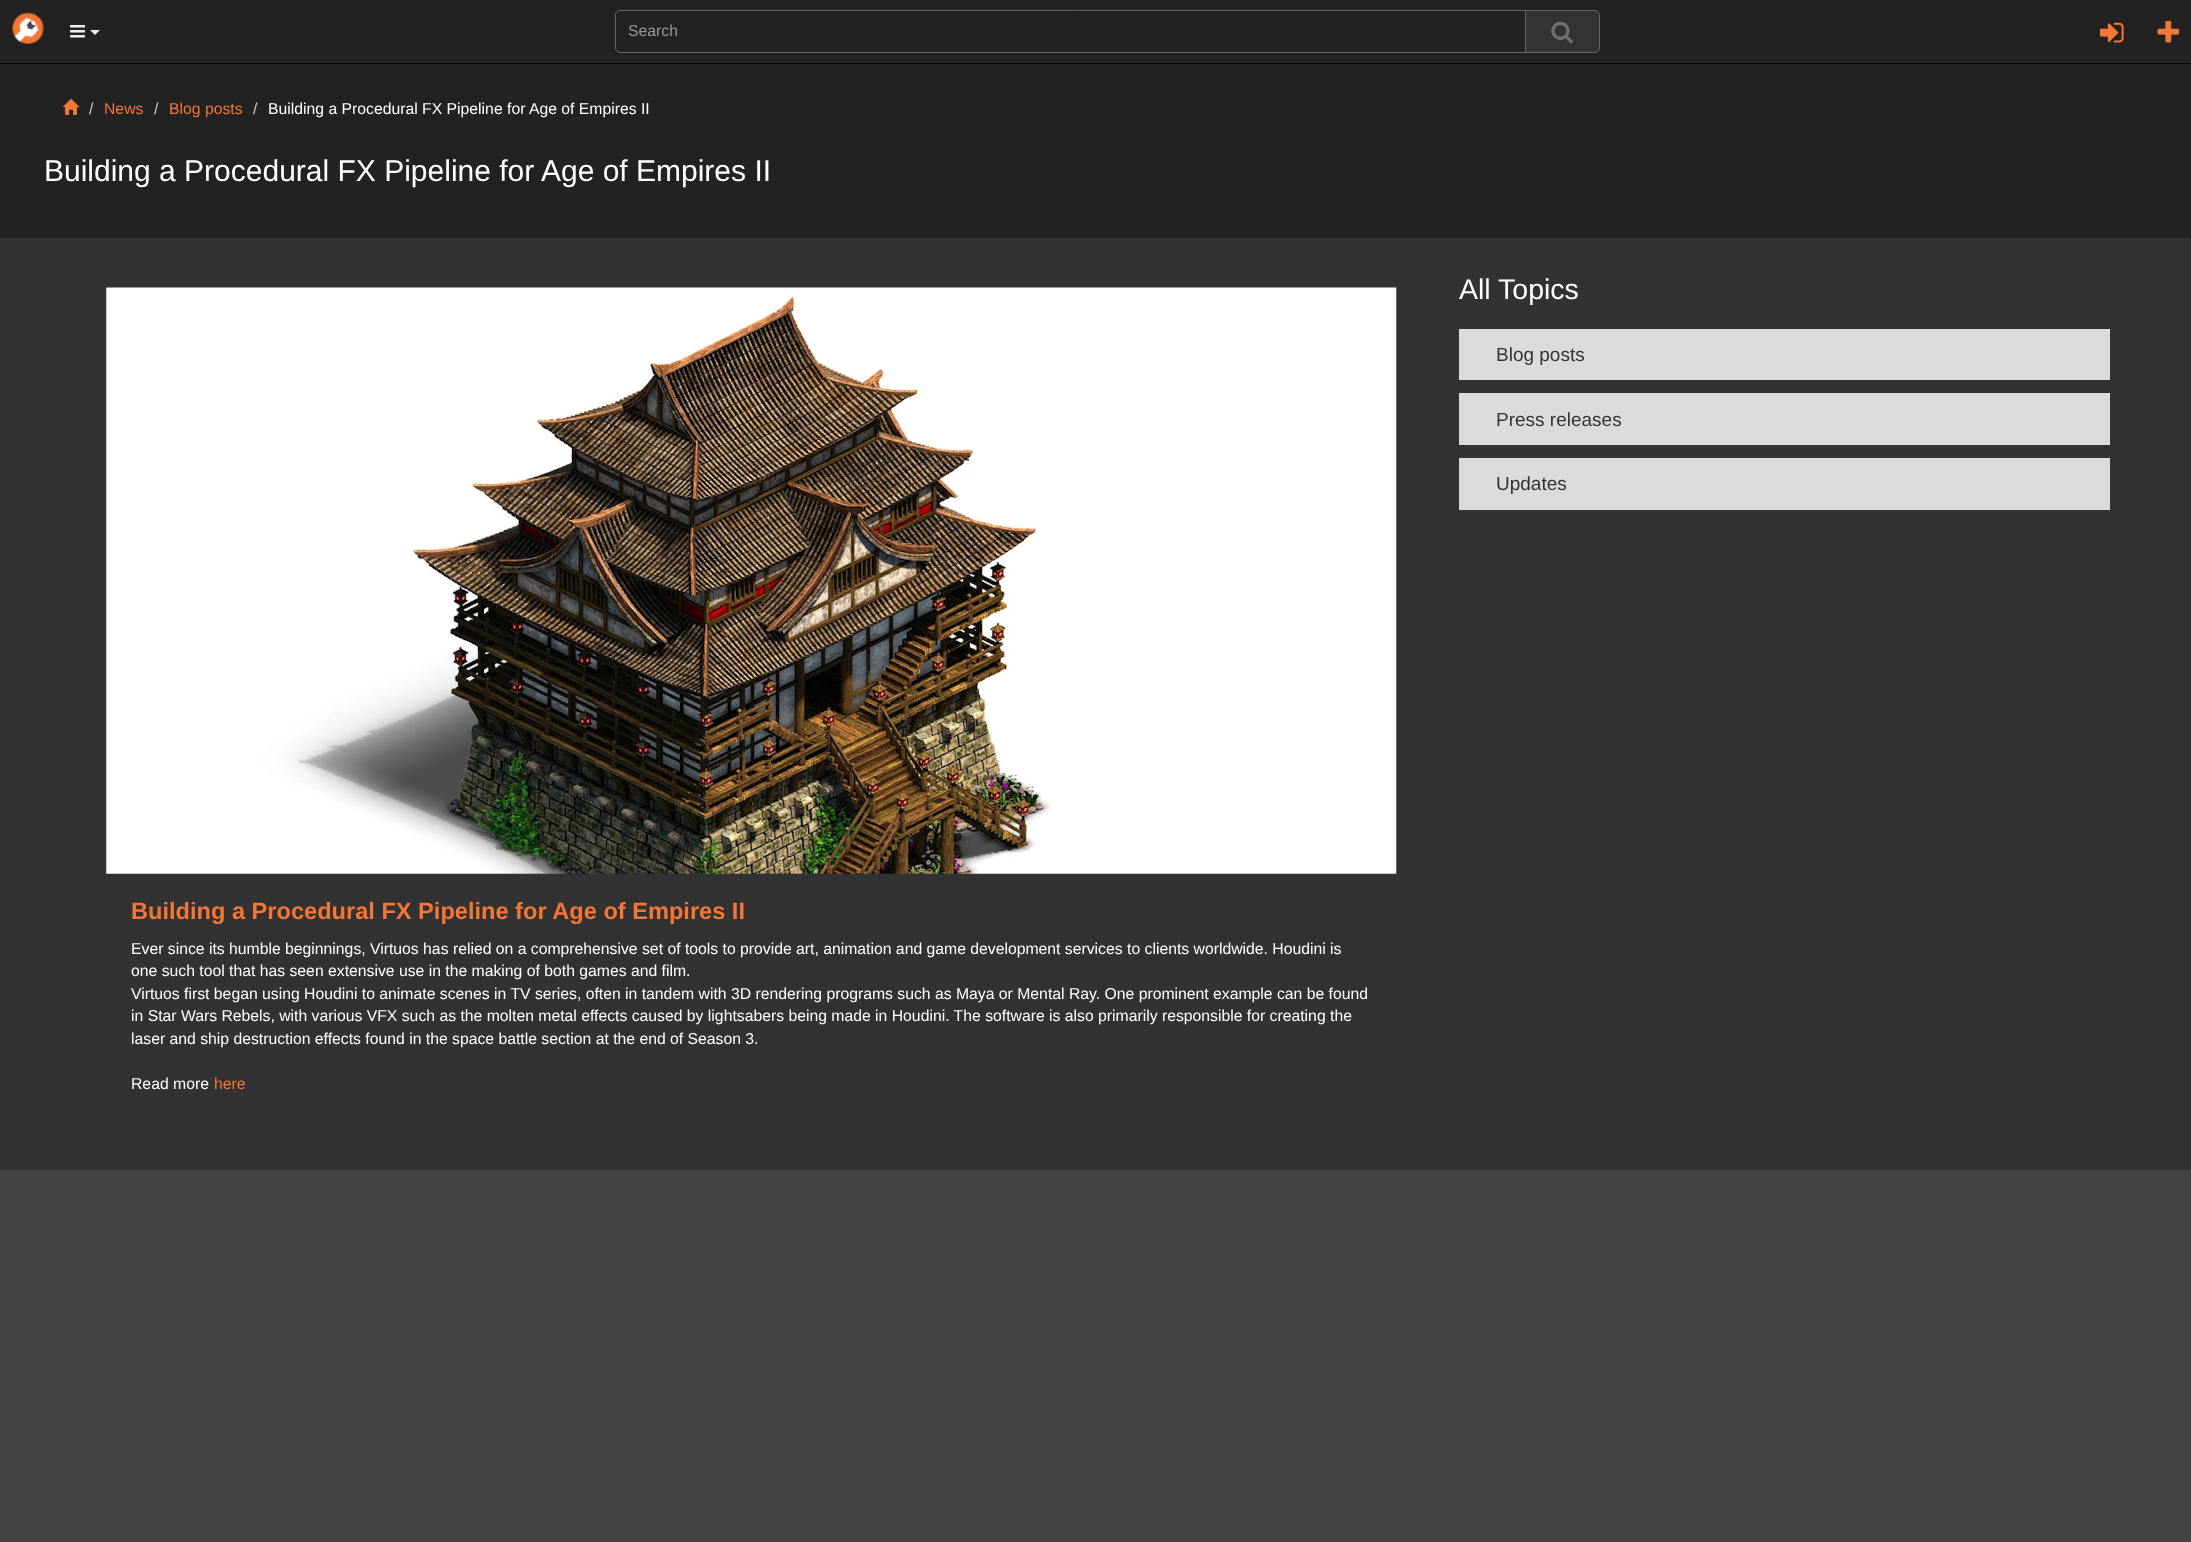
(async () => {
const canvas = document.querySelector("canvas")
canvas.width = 2191
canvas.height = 1542
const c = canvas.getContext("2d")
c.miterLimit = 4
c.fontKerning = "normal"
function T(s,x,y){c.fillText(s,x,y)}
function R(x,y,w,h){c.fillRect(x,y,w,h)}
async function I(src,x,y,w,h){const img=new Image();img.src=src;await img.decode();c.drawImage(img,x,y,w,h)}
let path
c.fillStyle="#444"
R(0,0,2191,1542)
c.fillStyle="#222"
R(0,0,2191,238)
c.fillStyle="#080808"
R(0,63,2191,1)
await I("1.png",12,12,32,32)
await I("2.png",70,25,15,13)
c.fillStyle="#eee"
path = new Path2D("M90 30h10l-5 5z")
c.fill(path)
c.fillStyle="#1f1f1f"
path = new Path2D("M620 12h906v-1h-906c-3 0-4 2-4 5c0-2 2-4 4-4z")
c.fill(path)
c.beginPath()
c.roundRect(615.5,10.5,912,42,[4.5,0,0,4.5])
c.strokeStyle="#666"
c.stroke()
c.font="15.75px Liberation Sans"
c.fillStyle="#999"
T("Search",628,36)
c.fillStyle="#333"
c.beginPath()
c.roundRect(1525.5,10.5,74,42,[0,4.5,4.5,0])
c.fill()
c.stroke()
await I("3.png",1551,21,22,23)
await I("4.png",2100,22,24,21)
await I("5.png",2157,20,23,23)
await I("6.png",62,98,18,17)
c.fillStyle="#ccc"
T("/",89,114)
c.fillStyle="#f37736"
T("News",104,114)
c.fillStyle="#ccc"
T("/",154,114)
c.fillStyle="#f37736"
T("Blog posts",169,114)
c.fillStyle="#ccc"
T("/",253,114)
c.fillStyle="#fff"
T("Building a Procedural FX Pipeline for Age of Empires II",268,114)
c.font="30px Liberation Sans"
T("Building a Procedural FX Pipeline for Age of Empires II",44,181)
c.fillStyle="#323232"
R(0,238,2191,932)
c.font="28.5px Liberation Sans"
c.fillStyle="#fff"
T("All Topics",1459,299)
c.fillStyle="#dbdbdb"
R(1459,329,651,51)
c.font="19px Liberation Sans"
c.fillStyle="#333"
T("Blog posts",1496,361)
c.fillStyle="#dbdbdb"
R(1459,393,651,52)
c.fillStyle="#333"
T("Press releases",1496,426)
c.fillStyle="#dbdbdb"
R(1459,458,651,52)
c.fillStyle="#333"
T("Updates",1496,490)
await I("7.png",106,287,1291,587)
c.font="bold 23.6px Liberation Sans"
c.fillStyle="#f37736"
T("Building a Procedural FX Pipeline for Age of Empires II",131,919)
c.font="15.75px Liberation Sans"
c.fillStyle="#fff"
T("Ever since its humble beginnings, Virtuos has relied on a comprehensive set of tools to provide art, animation and game development services to clients worldwide. Houdini is",131,954)
T("one such tool that has seen extensive use in the making of both games and film.",131,976)
T("Virtuos first began using Houdini to animate scenes in TV series, often in tandem with 3D rendering programs such as Maya or Mental Ray. One prominent example can be found",131,999)
T("in Star Wars Rebels, with various VFX such as the molten metal effects caused by lightsabers being made in Houdini. The software is also primarily responsible for creating the",131,1021)
T("laser and ship destruction effects found in the space battle section at the end of Season 3.",131,1044)
T("Read more",131,1089)
c.fillStyle="#f37736"
T("here",214,1089)
})()
